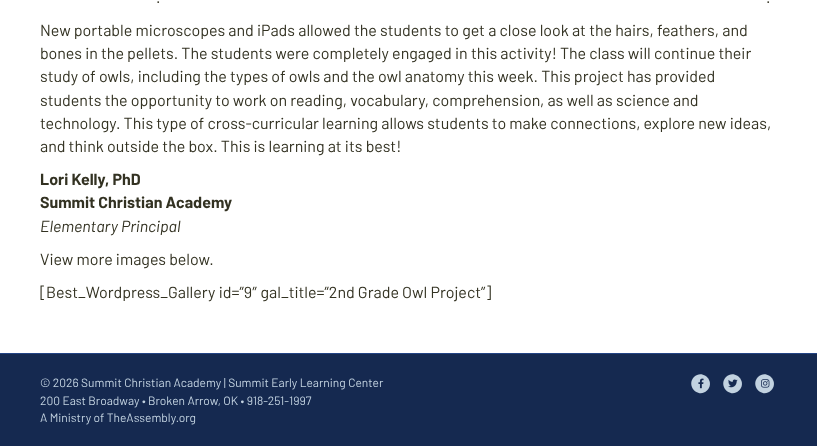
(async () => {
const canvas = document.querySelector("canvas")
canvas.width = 817
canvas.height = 446
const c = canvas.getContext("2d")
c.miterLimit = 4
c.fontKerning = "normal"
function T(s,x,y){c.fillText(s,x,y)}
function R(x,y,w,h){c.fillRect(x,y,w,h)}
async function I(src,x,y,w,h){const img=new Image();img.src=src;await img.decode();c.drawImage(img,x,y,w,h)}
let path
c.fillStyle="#fff"
R(0,0,817,446)
c.font="16px Barlow"
c.fillStyle="#333222"
T(".",156,3)
T(".",766,3)
T("New portable microscopes and iPads allowed the students to get a close look at the hairs, feathers, and",40,36)
T("bones in the pellets. The students were completely engaged in this activity! The class will continue their",40,59)
T("study of owls, including the types of owls and the owl anatomy this week. This project has provided",40,82)
T("students the opportunity to work on reading, vocabulary, comprehension, as well as science and",40,106)
T("technology. This type of cross-curricular learning allows students to make connections, explore new ideas,",40,129)
T("and think outside the box. This is learning at its best!",40,152)
c.font="bold 16px Barlow"
T("Lori Kelly",40,185)
T(", PhD",105,185)
T("Summit Christian Academy",40,208)
c.font="italic 16px Barlow"
T("Elementary Principal",40,232)
c.font="16px Barlow"
T("View more images below.",40,265)
T("[Best_Wordpress_Gallery id=”9″ gal_title=”2nd Grade Owl Project”]",40,298)
c.fillStyle="#152950"
R(0,354,817,92)
c.fillStyle="#234485"
R(0,353,817,1)
c.font="12px Barlow"
c.fillStyle="#c2d2e0"
T("© 2026 Summit Christian Academy | Summit Early Learning Center",40,387)
T("200 East Broadway • Broken Arrow, OK • 918-251-1997",40,405)
T("A Ministry of TheAssembly.org",40,422)
path = new Path2D("M694 377c8.5-8.5 22 4.5 13 13.5c-8.5 8.5-21.5-4.5-13-13.5z")
c.fill(path)
await I("1.png",698,378,6,11)
path = new Path2D("M726 377c8.5-8.5 22 4.5 13 13.5c-8.5 8.5-21.5-4.5-13-13.5z")
c.fill(path)
await I("2.png",728,379,10,9)
path = new Path2D("M758 377c8.5-8.5 22 4.5 13 13.5c-8.5 8.5-21.5-4.5-13-13.5z")
c.fill(path)
await I("3.png",761,379,9,9)
})()
